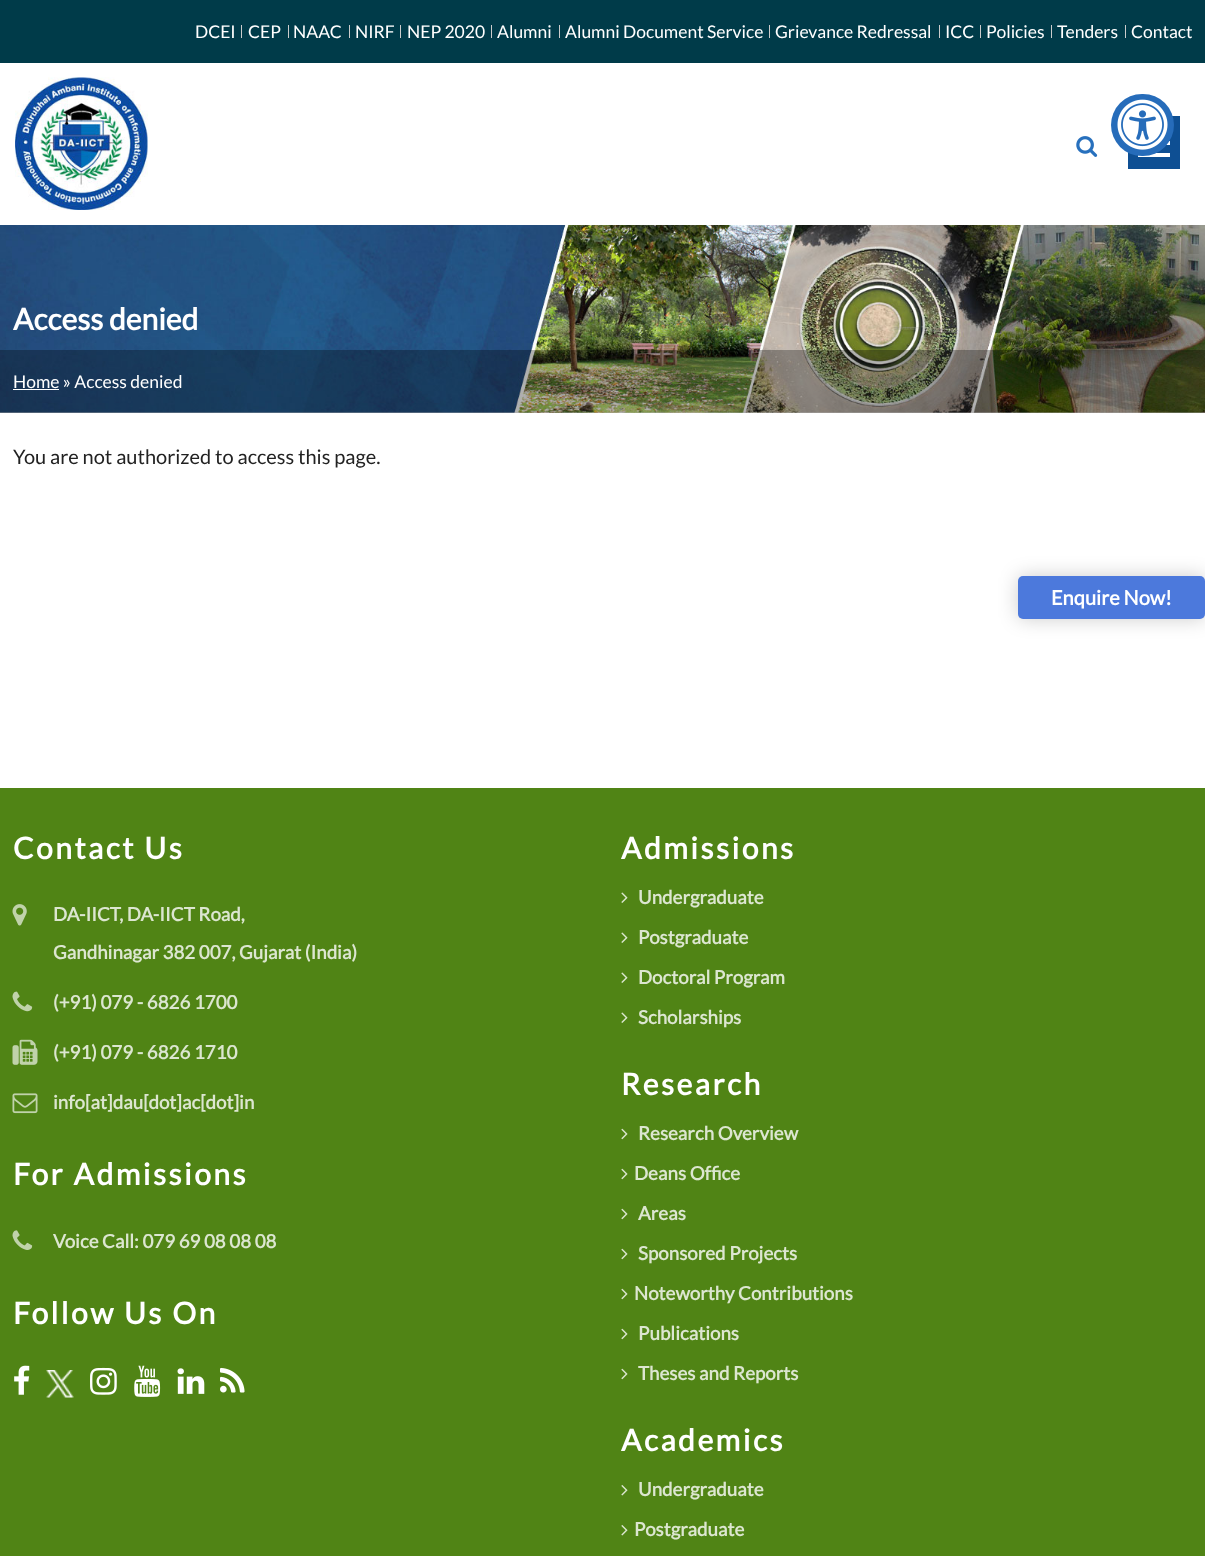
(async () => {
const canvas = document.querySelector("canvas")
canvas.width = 1205
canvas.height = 1556
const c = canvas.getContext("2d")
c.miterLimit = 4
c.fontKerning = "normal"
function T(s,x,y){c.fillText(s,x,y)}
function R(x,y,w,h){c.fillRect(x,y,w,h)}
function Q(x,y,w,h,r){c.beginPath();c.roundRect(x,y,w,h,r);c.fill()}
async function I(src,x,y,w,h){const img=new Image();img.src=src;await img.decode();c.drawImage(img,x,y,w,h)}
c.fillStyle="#fff"
R(0,0,1205,1556)
c.fillStyle="#003b49"
R(0,0,1205,63)
c.font="17.5px Lato"
c.fillStyle="#fff"
T("DCEI",195,38)
c.fillStyle="#ccc"
R(241,25,1,13)
c.fillStyle="#fff"
T("CEP",248,38)
c.fillStyle="#ccc"
R(288,25,1,13)
c.fillStyle="#fff"
T("NAAC",293,38)
c.fillStyle="#ccc"
R(349,25,1,13)
c.fillStyle="#fff"
T("NIRF",355,38)
c.fillStyle="#ccc"
R(400,25,1,13)
c.fillStyle="#fff"
T("NEP 2020",407,38)
c.fillStyle="#ccc"
R(491,25,1,13)
c.fillStyle="#fff"
T("Alumni",497,38)
c.fillStyle="#ccc"
R(559,25,1,13)
c.fillStyle="#fff"
T("Alumni Document Service",565,38)
c.fillStyle="#ccc"
R(769,25,1,13)
c.fillStyle="#fff"
T("Grievance Redressal",775,38)
c.fillStyle="#ccc"
R(939,25,1,13)
c.fillStyle="#fff"
T("ICC",945,38)
c.fillStyle="#ccc"
R(980,25,1,13)
c.fillStyle="#fff"
T("Policies",986,38)
c.fillStyle="#ccc"
R(1051,25,1,13)
c.fillStyle="#fff"
T("Tenders",1057,38)
c.fillStyle="#ccc"
R(1125,25,1,13)
c.fillStyle="#fff"
T("Contact",1131,38)
await I("1.png",15,77,133,133)
await I("2.png",1076,136,22,21)
c.fillStyle="#0e4f93"
R(1128,116,52,53)
c.fillStyle="#fff"
R(1166,141,4,4)
R(1138,153,32,4)
await I("3.png",0,225,1205,188)
await I("4.png",0,412,1205,1)
c.font="bold 30px Lato"
T("Access denied",13,330)
c.fillStyle="#0000004d"
R(0,350,1205,63)
c.font="17.5px Lato"
c.fillStyle="#fff"
T("Home » Access denied",13,388)
R(13,389,46,1)
c.font="20px Lato"
c.fillStyle="#222"
T("You are not authorized to access this page.",13,464)
c.fillStyle="#508415"
R(0,788,1205,768)
c.letterSpacing="2.5px"
c.font="bold 30px Lato"
c.fillStyle="#fff"
T("Contact Us",13,859)
await I("5.png",12,904,15,22)
c.letterSpacing="0px"
c.font="bold 18.75px Lato"
c.fillStyle="#dce6d0"
T("DA-IICT, DA-IICT Road,",53,921)
T("Gandhinagar 382 007, Gujarat (India)",53,959)
await I("6.png",12,991,21,21)
T("(+91) 079 - 6826 1700",53,1009)
await I("7.png",12,1039,26,26)
T("(+91) 079 - 6826 1710",53,1059)
await I("8.png",12,1093,26,21)
T("info[at]dau[dot]ac[dot]in",53,1109)
c.letterSpacing="2.5px"
c.font="bold 30px Lato"
c.fillStyle="#fff"
T("For Admissions",13,1185)
await I("9.png",12,1230,21,20)
c.letterSpacing="0px"
c.font="bold 18.75px Lato"
c.fillStyle="#dce6d0"
T("Voice Call: 079 69 08 08 08",53,1248)
c.letterSpacing="2.5px"
c.font="bold 30px Lato"
c.fillStyle="#fff"
T("Follow Us On",13,1324)
await I("10.png",14,1365,16,30)
await I("11.png",46,1370,28,28)
await I("12.png",90,1367,27,28)
await I("13.png",134,1365,27,32)
await I("14.png",177,1368,28,26)
await I("15.png",220,1367,25,26)
T("Admissions",621,859)
await I("16.png",621,892,7,11)
c.letterSpacing="0px"
c.font="bold 18.75px Lato"
c.fillStyle="#dce6d0"
T("Undergraduate",638,904)
await I("16.png",621,932,7,11)
T("Postgraduate",638,944)
await I("16.png",621,972,7,11)
T("Doctoral Program",638,984)
await I("16.png",621,1012,7,11)
T("Scholarships",638,1024)
c.letterSpacing="2.5px"
c.font="bold 30px Lato"
c.fillStyle="#fff"
T("Research",621,1095)
await I("17.png",621,1128,7,12)
c.letterSpacing="0px"
c.font="bold 18.75px Lato"
c.fillStyle="#dce6d0"
T("Research Overview",638,1140)
await I("17.png",621,1168,7,12)
T("Deans Office",634,1180)
await I("17.png",621,1208,7,12)
T("Areas",638,1220)
await I("17.png",621,1248,7,12)
T("Sponsored Projects",638,1260)
await I("17.png",621,1288,7,12)
T("Noteworthy Contributions",634,1300)
await I("17.png",621,1328,7,12)
T("Publications",638,1340)
await I("17.png",621,1368,7,12)
T("Theses and Reports",638,1380)
c.letterSpacing="2.5px"
c.font="bold 30px Lato"
c.fillStyle="#fff"
T("Academics",621,1451)
await I("18.png",621,1485,7,11)
c.letterSpacing="0px"
c.font="bold 18.75px Lato"
c.fillStyle="#dce6d0"
T("Undergraduate",638,1496)
await I("18.png",621,1525,7,11)
T("Postgraduate",634,1536)
c.fillStyle="#266cba"
Q(1111,94,63,62,31)
await I("19.png",1117,99,51,51)
c.fillStyle="#00000033"
c.filter="blur(9.5px)"
c.beginPath()
c.roundRect(1018,576,187,43,5)
c.fill()
c.filter="none"
c.fillStyle="#4c79dc"
Q(1018,576,187,43,5)
c.font="bold 20px Lato"
c.fillStyle="#fff"
T("Enquire Now!",1051,605)
})()
